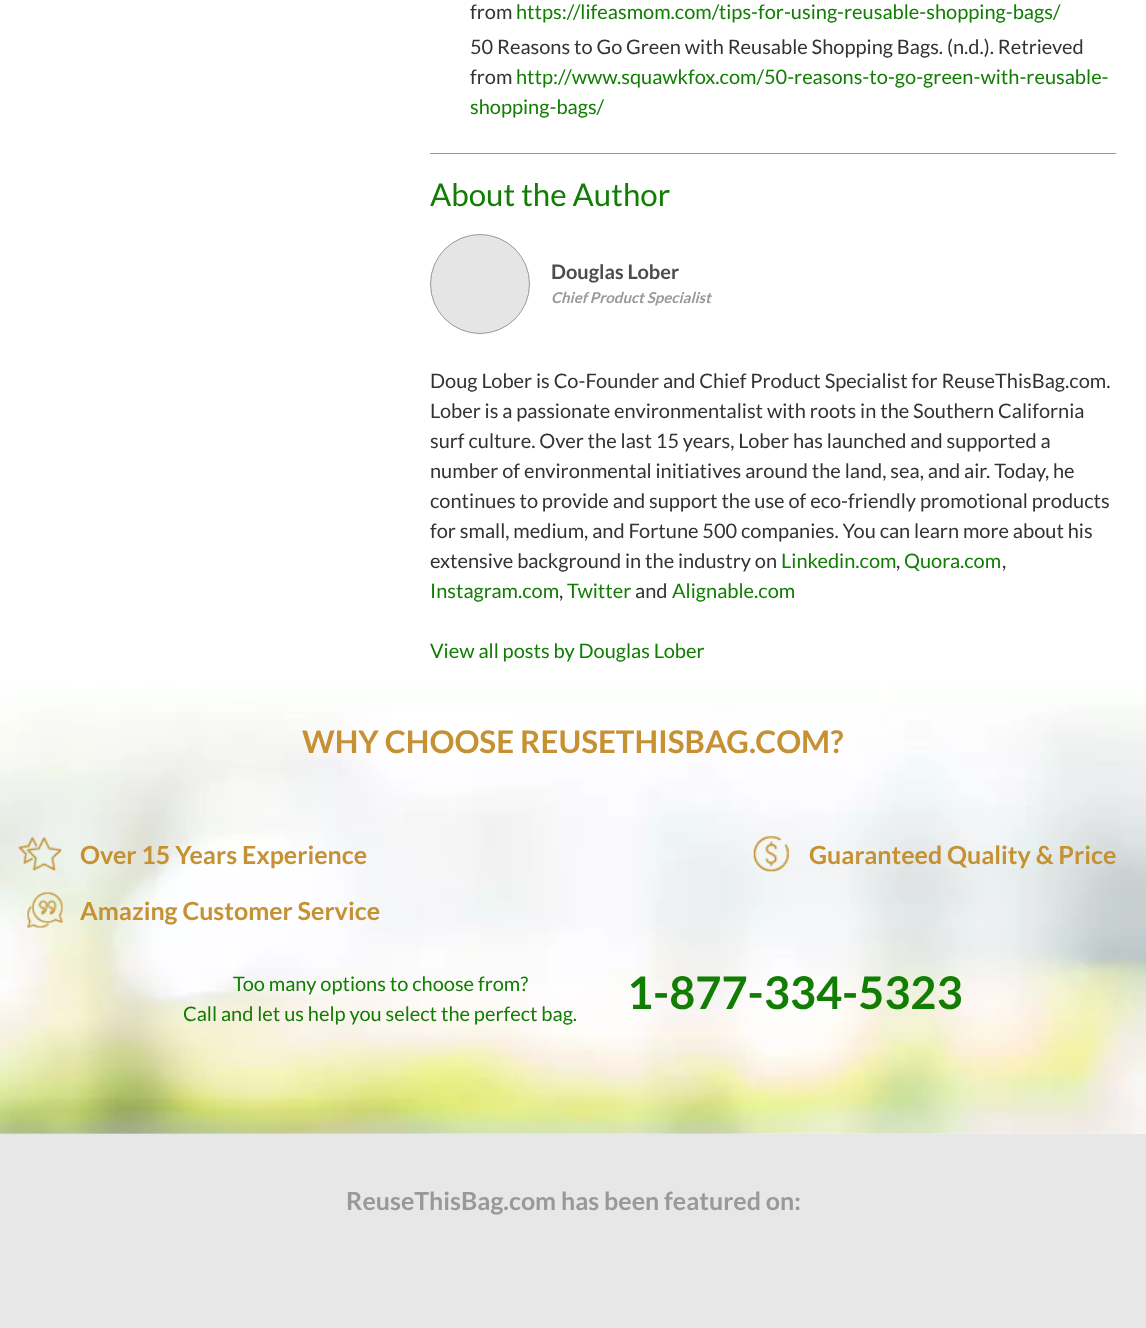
(async () => {
const canvas = document.querySelector("canvas")
canvas.width = 1146
canvas.height = 1328
const c = canvas.getContext("2d")
c.miterLimit = 4
c.fontKerning = "normal"
function T(s,x,y){c.fillText(s,x,y)}
function R(x,y,w,h){c.fillRect(x,y,w,h)}
async function I(src,x,y,w,h){const img=new Image();img.src=src;await img.decode();c.drawImage(img,x,y,w,h)}
c.fillStyle="#fff"
R(0,0,1146,1328)
c.font="20px Lato"
c.fillStyle="#333"
T("from",470,19)
c.fillStyle="#117d03"
T("https://lifeasmom.com/tips-for-using-reusable-shopping-bags/",516,19)
c.fillStyle="#333"
T("50 Reasons to Go Green with Reusable Shopping Bags. (n.d.). Retrieved",470,54)
T("from",470,84)
c.fillStyle="#117d03"
T("http://www.squawkfox.com/50-reasons-to-go-green-with-reusable-",516,84)
T("shopping-bags/",470,114)
c.fillStyle="#999"
R(430,153,686,1)
c.font="31.25px Lato"
c.fillStyle="#117d03"
T("About the Author",430,206)
c.fillStyle="#e5e5e5"
c.beginPath()
c.arc(480,284,49.5,0,7)
c.fill()
c.strokeStyle="#999"
c.stroke()
c.font="bold 20px Lato"
c.fillStyle="#4c4c4c"
T("Douglas Lober",551,279)
c.font="italic bold 15px Lato"
c.fillStyle="#999"
T("Chief Product Specialist",551,303)
c.font="20px Lato"
c.fillStyle="#333"
T("Doug Lober is Co-Founder and Chief Product Specialist for ReuseThisBag.com.",430,388)
T("Lober is a passionate environmentalist with roots in the Southern California",430,418)
T("surf culture. Over the last 15 years, Lober has launched and supported a",430,448)
T("number of environmental initiatives around the land, sea, and air. Today, he",430,478)
T("continues to provide and support the use of eco-friendly promotional products",430,508)
T("for small, medium, and Fortune 500 companies. You can learn more about his",430,538)
T("extensive background in the industry on",430,568)
c.fillStyle="#117d03"
T("Linkedin.com",781,568)
c.fillStyle="#333"
T(",",896,568)
c.fillStyle="#117d03"
T("Quora.com",904,568)
c.fillStyle="#333"
T(",",1002,568)
c.fillStyle="#117d03"
T("Instagram.com",430,598)
c.fillStyle="#333"
T(",",559,598)
c.fillStyle="#117d03"
T("Twitter",567,598)
c.fillStyle="#333"
T("and",635,598)
c.fillStyle="#117d03"
T("Alignable.com",672,598)
T("View all posts by Douglas Lober",430,658)
await I("1.png",0,685,1146,449)
c.font="bold 31.25px Lato"
c.fillStyle="#c59132"
T("WHY CHOOSE REUSETHISBAG.COM?",302,753)
await I("2.png",18,836,44,36)
c.font="bold 25px Lato"
T("Over 15 Years Experience",80,864)
await I("3.png",753,836,36,36)
T("Guaranteed Quality & Price",809,864)
await I("4.png",27,892,36,36)
T("Amazing Customer Service",80,920)
c.font="20px Lato"
c.fillStyle="#117d03"
T("Too many options to choose from?",233,991)
T("Call and let us help you select the perfect bag.",183,1021)
c.font="bold 45px Lato"
T("1-877-334-5323",627,1009)
c.fillStyle="#e7e7e7"
R(0,1134,1146,194)
c.font="bold 25px Lato"
c.fillStyle="#999"
T("ReuseThisBag.com has been featured on:",346,1210)
})()
